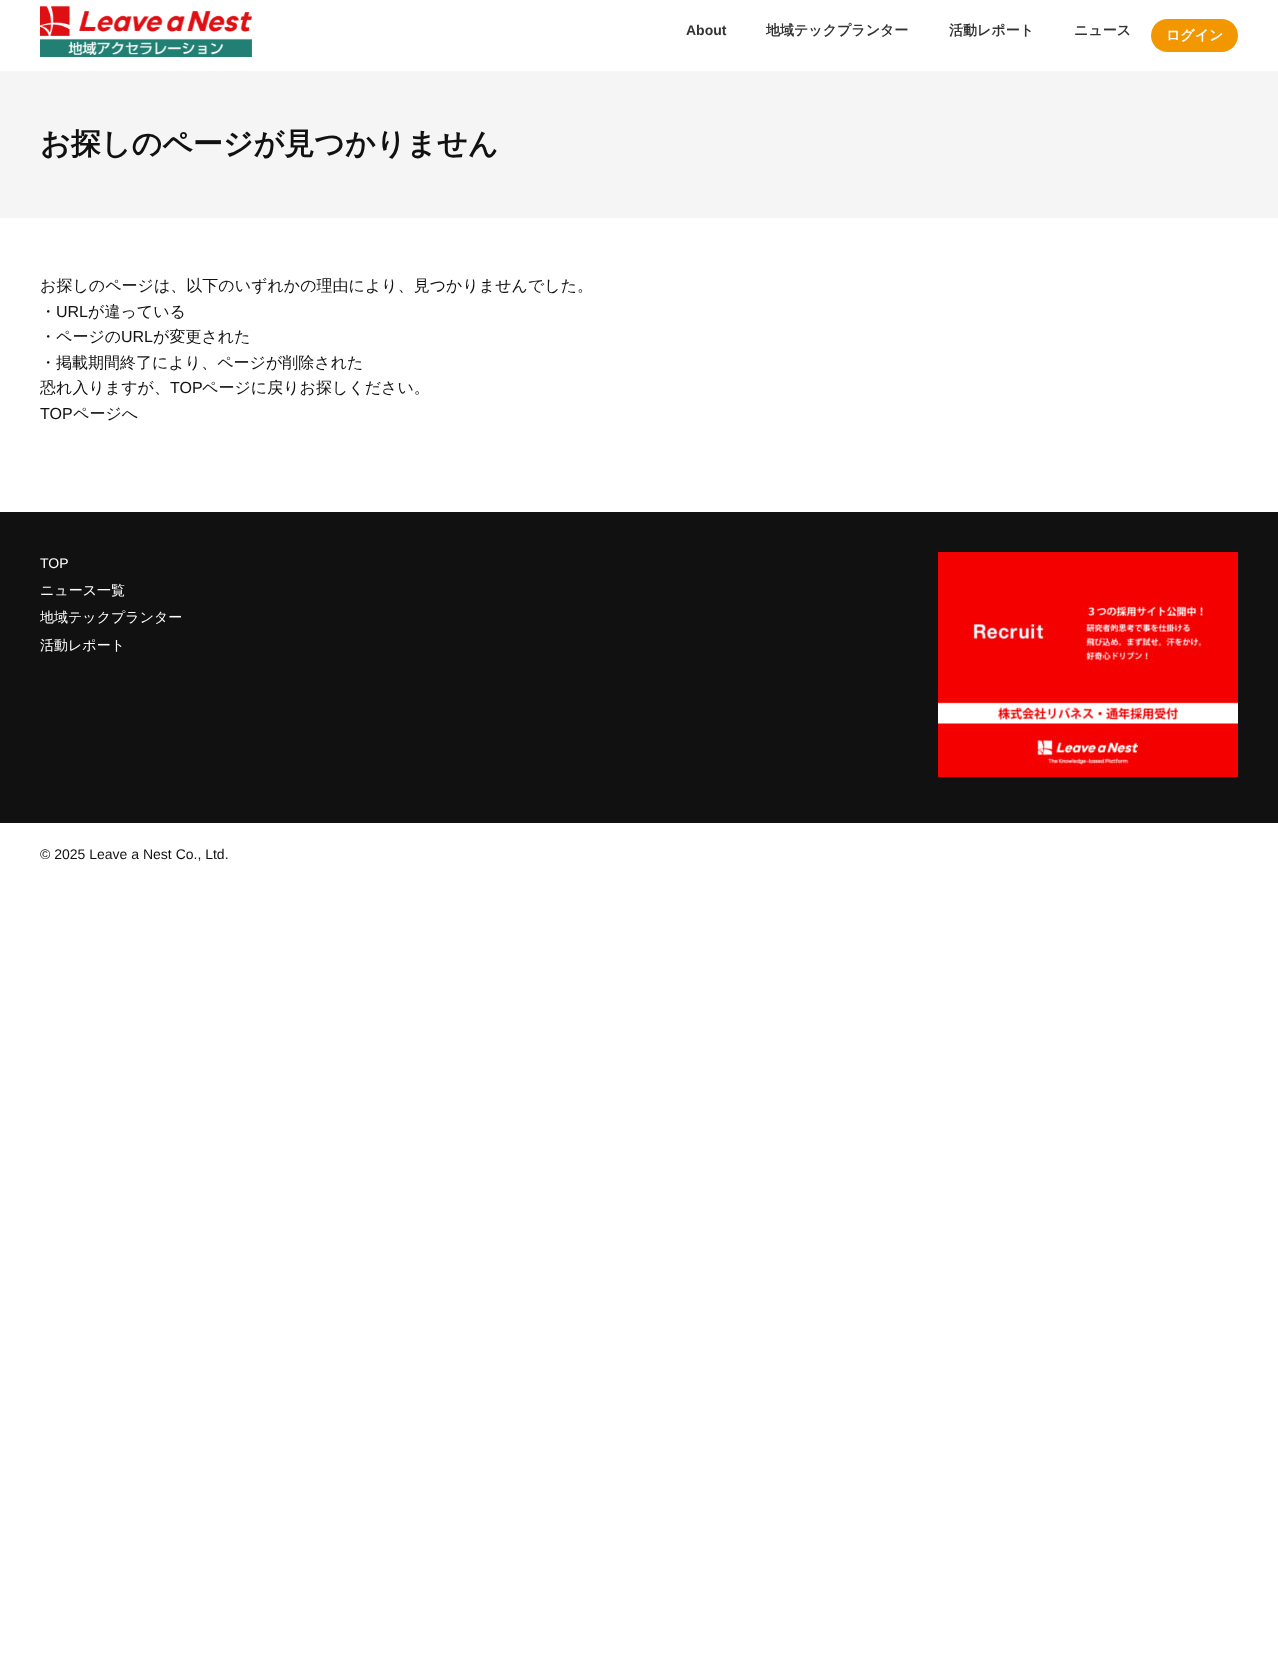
(async () => {
const canvas = document.querySelector("canvas")
canvas.width = 1278
canvas.height = 1675
const c = canvas.getContext("2d")
c.miterLimit = 4
c.fontKerning = "normal"
function T(s,x,y){c.fillText(s,x,y)}
function R(x,y,w,h){c.fillRect(x,y,w,h)}
function Q(x,y,w,h,r){c.beginPath();c.roundRect(x,y,w,h,r);c.fill()}
async function I(src,x,y,w,h){const img=new Image();img.src=src;await img.decode();c.drawImage(img,x,y,w,h)}
c.fillStyle="#fff"
R(0,0,1278,1675)
await I("1.png",40,6,212,51)
c.font="bold 14px Liberation Sans"
c.fillStyle="#333"
T("About",686,35)
c.font="bold 14px WenQuanYi Zen Hei"
T("地域テックプランター",766,35)
T("活動レポート",949,35)
T("ニュース",1074,35)
c.fillStyle="#f39700"
Q(1151,19,87,33,16.5)
c.fillStyle="#fff"
T("ログイン",1166,40)
c.fillStyle="#f5f5f5"
R(0,71,1278,147)
c.font="bold 30px WenQuanYi Zen Hei"
c.fillStyle="#111"
T("お探しのページが見つかりません",40,154)
c.font="500 16px WenQuanYi Zen Hei"
T("お探しのページは、以下のいずれかの理由により、見つかりませんでした。",40,291)
T("・",40,317)
c.font="16px Liberation Sans"
T("URL",56,317)
c.font="500 16px WenQuanYi Zen Hei"
T("が違っている",88,317)
T("・ページの",40,342)
c.font="16px Liberation Sans"
T("URL",121,342)
c.font="500 16px WenQuanYi Zen Hei"
T("が変更された",153,342)
T("・掲載期間終了により、ページが削除された",40,368)
T("恐れ入りますが、",40,393)
c.font="16px Liberation Sans"
T("TOP",170,393)
c.font="500 16px WenQuanYi Zen Hei"
T("ページに戻りお探しください。",202,393)
c.font="16px Liberation Sans"
T("TOP",40,419)
c.font="500 16px WenQuanYi Zen Hei"
T("ページへ",73,419)
R(0,512,1278,311)
c.font="14px Liberation Sans"
c.fillStyle="#fff"
T("TOP",40,568)
c.font="500 14px WenQuanYi Zen Hei"
T("ニュース一覧",40,595)
T("地域テックプランター",40,622)
T("活動レポート",40,650)
await I("2.png",938,552,300,225)
c.font="14px Liberation Sans"
c.fillStyle="#111"
T("© 2025 Leave a Nest Co., Ltd.",40,859)
})()
